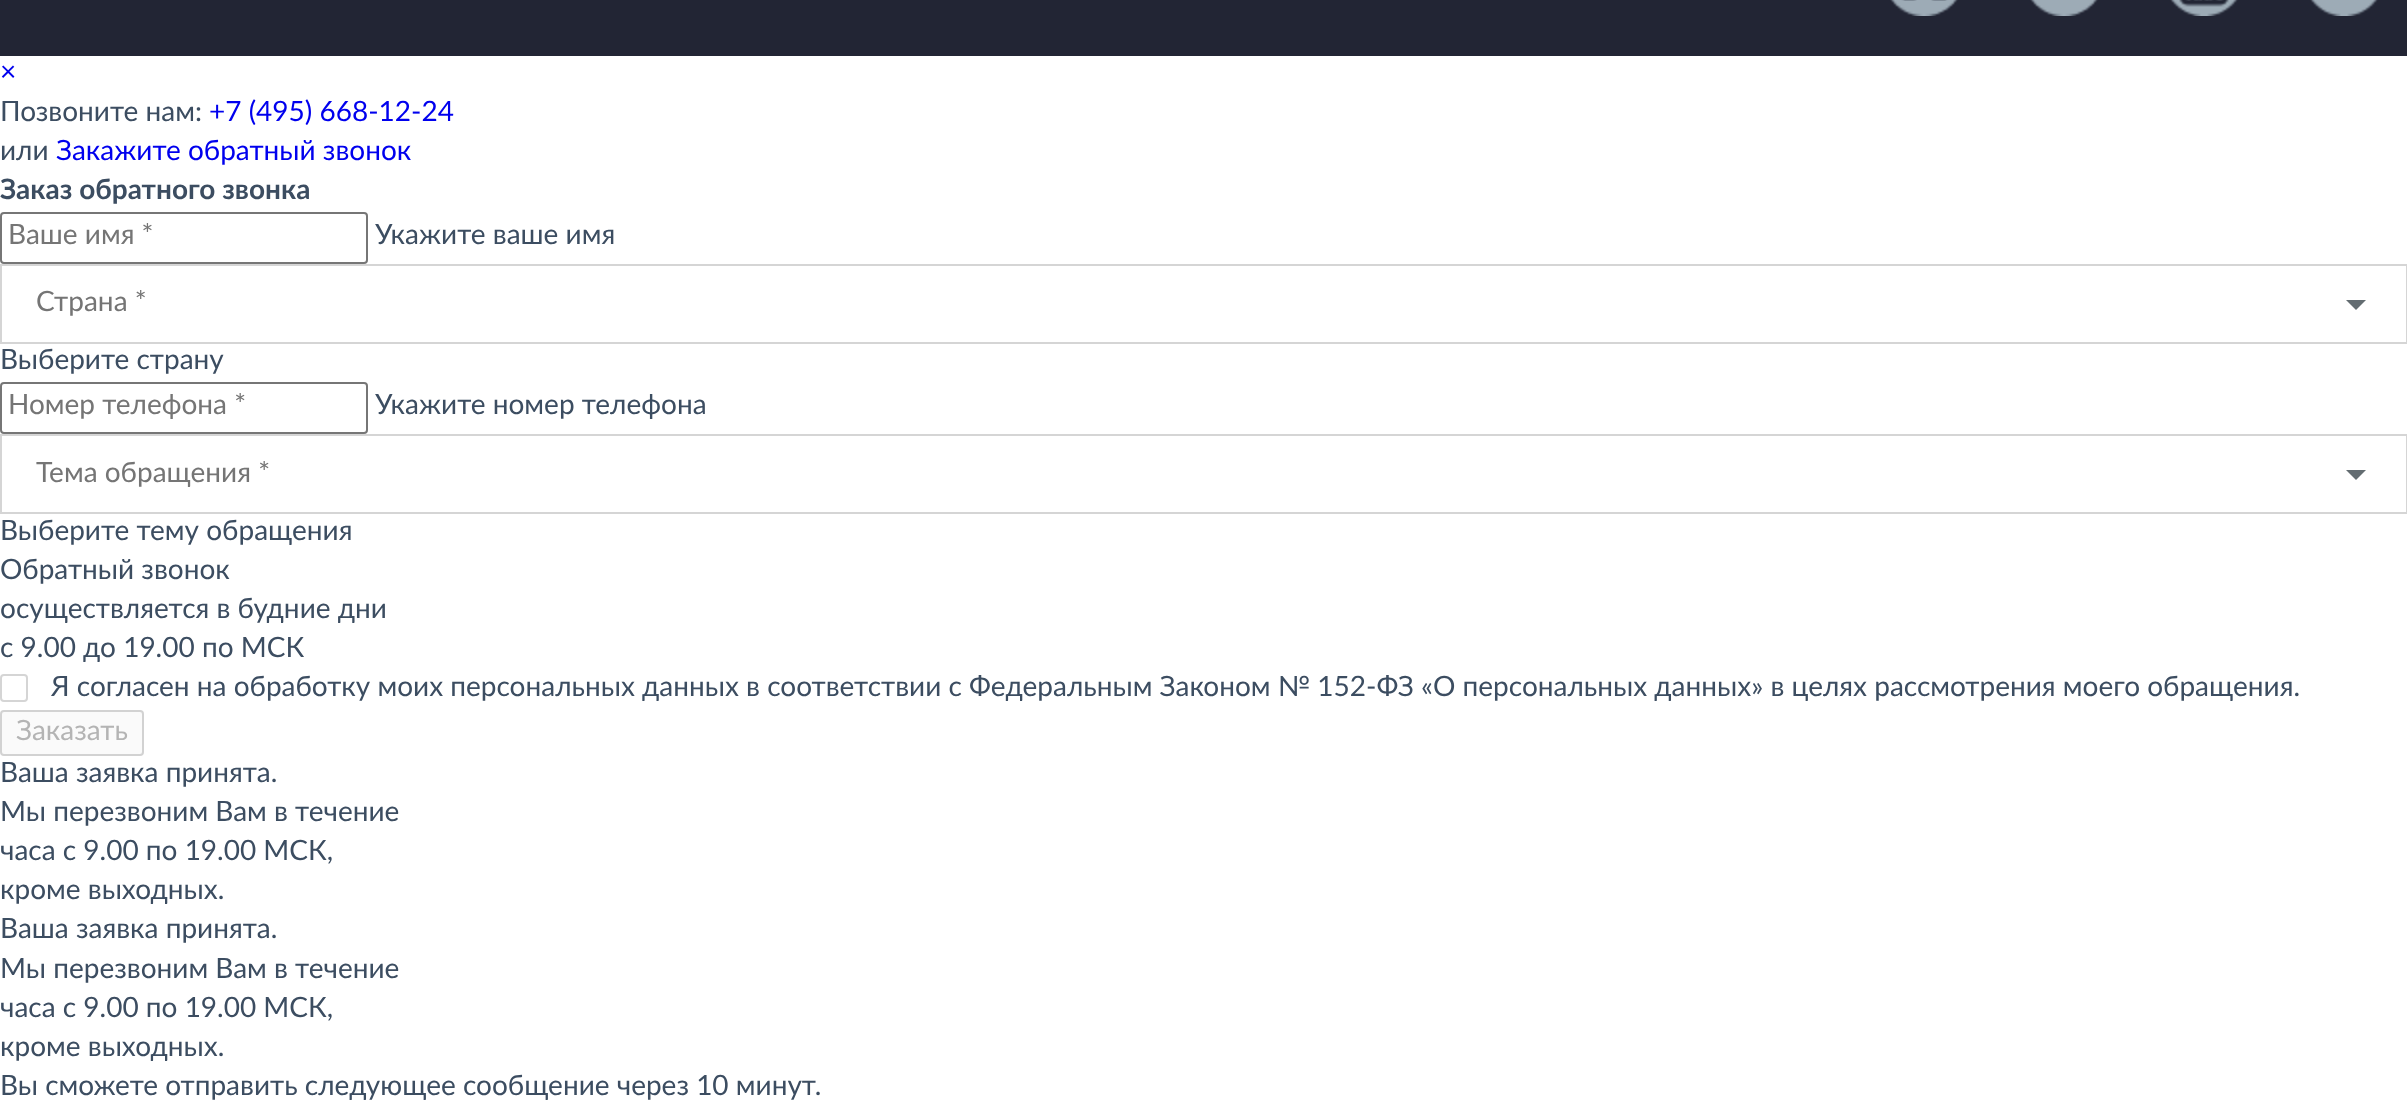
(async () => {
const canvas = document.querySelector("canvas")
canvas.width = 2407
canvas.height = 1107
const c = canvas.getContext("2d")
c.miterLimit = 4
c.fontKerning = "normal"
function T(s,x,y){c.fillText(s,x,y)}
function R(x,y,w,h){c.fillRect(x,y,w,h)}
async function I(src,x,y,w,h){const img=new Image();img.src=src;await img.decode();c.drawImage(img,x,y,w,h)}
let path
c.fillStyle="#fff"
R(0,0,2407,1107)
c.fillStyle="#222534"
R(0,0,2407,56)
await I("1.png",1890,0,68,16)
await I("2.png",2030,0,68,16)
await I("3.png",2170,0,68,16)
await I("4.png",2310,0,68,16)
c.font="28px Lato"
c.fillStyle="#00e"
T("×",0,81)
c.fillStyle="#3c4d61"
T("Позвоните нам:",0,121)
c.fillStyle="#00e"
T("+7 (495) 668-12-24",209,121)
c.fillStyle="#3c4d61"
T("или",0,160)
c.fillStyle="#00e"
T("Закажите обратный звонок",56,160)
c.font="bold 28px Lato"
c.fillStyle="#3c4d61"
T("Заказ обратного звонка",0,199)
c.beginPath()
c.roundRect(1,213,366,50,3)
c.strokeStyle="#767676"
c.lineWidth=2
c.stroke()
c.font="28px Lato"
c.fillStyle="#757575"
T("Ваше имя *",8,244)
c.fillStyle="#3c4d61"
T("Укажите ваше имя",375,244)
c.strokeStyle="#d5d5d5"
c.strokeRect(1,265,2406,78)
c.fillStyle="#757575"
T("Страна *",36,311)
c.fillStyle="#636c71"
path = new Path2D("M2346 300h20l-10 10z")
c.fill(path)
c.fillStyle="#3c4d61"
T("Выберите страну",0,369)
c.beginPath()
c.roundRect(1,383,366,50,3)
c.strokeStyle="#767676"
c.stroke()
c.fillStyle="#757575"
T("Номер телефона *",8,414)
c.fillStyle="#3c4d61"
T("Укажите номер телефона",375,414)
c.strokeStyle="#d5d5d5"
c.strokeRect(1,435,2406,78)
c.fillStyle="#757575"
T("Тема обращения *",36,482)
c.fillStyle="#636c71"
path = new Path2D("M2346 470h20l-10 10z")
c.fill(path)
c.fillStyle="#3c4d61"
T("Выберите тему обращения",0,540)
T("Обратный звонок",0,579)
T("осуществляется в будние дни",0,618)
T("с 9.00 до 19.00 по МСК",0,657)
c.beginPath()
c.roundRect(1,675,26,26,3)
c.stroke()
T("Я согласен на обработку моих персональных данных в соответствии с Федеральным Законом № 152-ФЗ «О персональных данных» в целях рассмотрения моего обращения.",51,696)
c.fillStyle="#fafafa"
c.beginPath()
c.roundRect(1,711,142,44,3)
c.fill()
c.strokeStyle="#d2d2d2"
c.stroke()
c.fillStyle="#b4b4b4"
T("Заказать",16,740)
c.fillStyle="#3c4d61"
T("Ваша заявка принята.",0,782)
T("Мы перезвоним Вам в течение",0,821)
T("часа с 9.00 по 19.00 МСК,",0,860)
T("кроме выходных.",0,899)
T("Ваша заявка принята.",0,938)
T("Мы перезвоним Вам в течение",0,978)
T("часа с 9.00 по 19.00 МСК,",0,1017)
T("кроме выходных.",0,1056)
T("Вы сможете отправить следующее сообщение через 10 минут.",0,1095)
})()
